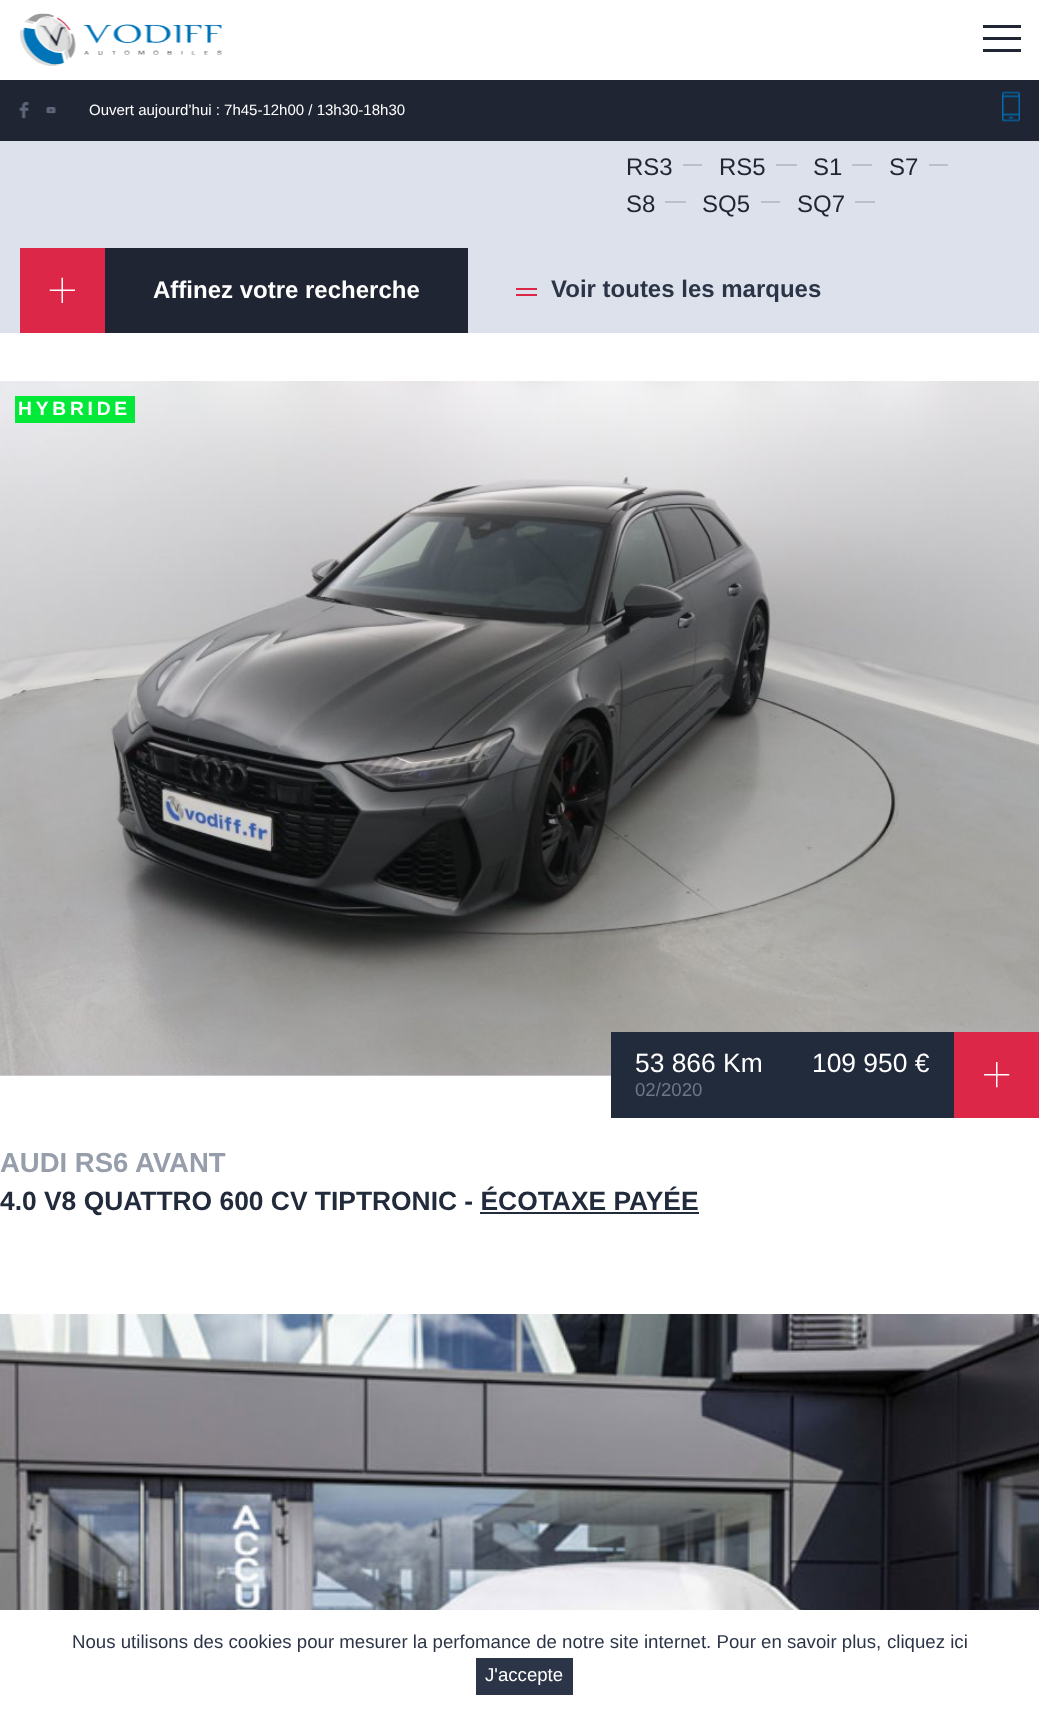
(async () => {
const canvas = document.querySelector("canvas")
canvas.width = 1039
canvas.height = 1712
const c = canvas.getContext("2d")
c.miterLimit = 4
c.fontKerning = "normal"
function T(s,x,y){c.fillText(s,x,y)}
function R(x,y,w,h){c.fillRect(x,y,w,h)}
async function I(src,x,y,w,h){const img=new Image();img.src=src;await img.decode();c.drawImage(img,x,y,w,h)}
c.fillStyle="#fff"
R(0,0,1039,1712)
await I("1.png",19,13,203,53)
c.fillStyle="#1f2532"
R(983,25,38,3)
R(983,37,38,3)
R(983,49,38,3)
R(0,80,1039,61)
await I("2.png",19,102,10,17)
await I("3.png",46,107,10,7)
c.font="15px Liberation Sans"
c.fillStyle="#fff"
T("Ouvert aujourd’hui : 7h45-12h00 / 13h30-18h30",89,115)
await I("4.png",1002,91,18,31)
c.fillStyle="#dce1eb"
R(0,141,1039,192)
c.font="24px Liberation Sans"
c.fillStyle="#1f2532"
T("RS3",626,175)
c.fillStyle="#b9bfcb"
R(683,164,19,2)
c.fillStyle="#1f2532"
T("RS5",719,175)
c.fillStyle="#b9bfcb"
R(776,164,21,2)
c.fillStyle="#1f2532"
T("S1",813,175)
c.fillStyle="#b9bfcb"
R(852,164,20,2)
c.fillStyle="#1f2532"
T("S7",889,175)
c.fillStyle="#b9bfcb"
R(929,164,19,2)
c.fillStyle="#1f2532"
T("S8",626,212)
c.fillStyle="#b9bfcb"
R(665,201,21,2)
c.fillStyle="#1f2532"
T("SQ5",702,212)
c.fillStyle="#b9bfcb"
R(761,201,19,2)
c.fillStyle="#1f2532"
T("SQ7",797,212)
c.fillStyle="#b9bfcb"
R(855,201,20,2)
c.fillStyle="#1f2532"
R(105,248,363,85)
c.fillStyle="#dd2749"
R(20,248,85,85)
await I("5.png",49,277,26,26)
c.font="bold 24px Liberation Sans"
c.fillStyle="#fff"
T("Affinez votre recherche",153,298)
c.fillStyle="#dd2749"
R(516,288,21,2)
c.fillStyle="#2c3547"
T("Voir toutes les marques",551,297)
c.fillStyle="#dd2749"
R(516,294,21,2)
c.fillStyle="#dce1eb"
R(0,1075,611,1)
await I("6.png",0,381,1039,695)
c.fillStyle="#02e939"
R(15,396,120,27)
c.letterSpacing="3.75px"
c.font="bold 19.25px Liberation Sans"
c.fillStyle="#fff"
T("HYBRIDE",18,415)
c.fillStyle="#222b3c"
R(611,1032,343,86)
c.letterSpacing="0px"
c.font="26.4px Liberation Sans"
c.fillStyle="#fff"
T("53 866 Km",635,1072)
c.font="18.65px Liberation Sans"
c.fillStyle="#6e778a"
T("02/2020",635,1096)
c.font="26.4px Liberation Sans"
c.fillStyle="#fff"
T("109 950 €",812,1072)
c.fillStyle="#dd2749"
R(954,1032,85,86)
await I("7.png",984,1062,26,26)
c.font="bold 27.5px Liberation Sans"
c.fillStyle="#979eab"
T("AUDI RS6 AVANT",0,1172)
c.font="bold 26.4px Liberation Sans"
c.fillStyle="#222b3c"
T("4.0 V8 QUATTRO 600 CV TIPTRONIC - ÉCOTAXE PAYÉE",0,1210)
R(480,1212,219,2)
await I("8.png",0,1314,1039,296)
c.font="18.65px Liberation Sans"
c.fillStyle="#2c3547"
T("Nous utilisons des cookies pour mesurer la perfomance de notre site internet. Pour en savoir plus,",72,1648)
T("cliquez ici",887,1648)
R(476,1658,97,37)
c.fillStyle="#fff"
T("J'accepte",485,1681)
})()
